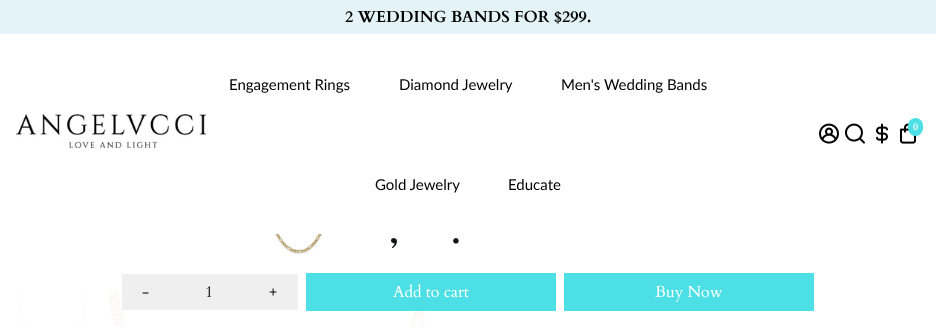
(async () => {
const canvas = document.querySelector("canvas")
canvas.width = 936
canvas.height = 327
const c = canvas.getContext("2d")
c.miterLimit = 4
c.fontKerning = "normal"
function T(s,x,y){c.fillText(s,x,y)}
function R(x,y,w,h){c.fillRect(x,y,w,h)}
function Q(x,y,w,h,r){c.beginPath();c.roundRect(x,y,w,h,r);c.fill()}
async function I(src,x,y,w,h){const img=new Image();img.src=src;await img.decode();c.drawImage(img,x,y,w,h)}
c.fillStyle="#fff"
R(0,0,936,327)
c.fillStyle="#e4f3f7"
R(0,0,936,34)
c.font="bold 16px Cardo"
c.fillStyle="#000"
T("2 WEDDING BANDS FOR $299.",345,22)
await I("1.png",16,114,190,34)
c.font="15px Lato"
T("Engagement Rings",229,90)
T("Diamond Jewelry",399,90)
T("Men's Wedding Bands",561,90)
T("Gold Jewelry",375,190)
T("Educate",508,190)
await I("2.png",819,123,20,21)
await I("3.png",845,123,20,21)
await I("4.png",876,123,12,21)
await I("5.png",900,123,16,21)
c.fillStyle="#4cdfe6"
Q(908,118,15,18,7.5)
c.font="bold 10px Cardo"
c.fillStyle="#fff"
T("0",913,130)
await I("6.png",258,234,79,21)
c.font="bold 34px Cardo"
c.fillStyle="#121317"
T(",",389,243)
T(".",451,243)
await I("8.png",103,290,329,37)
c.fillStyle="#efefef"
R(122,274,176,36)
c.font="16px Cardo"
c.fillStyle="#000"
T("-",142,297)
T("1",205,297)
T("+",269,297)
c.fillStyle="#4cdfe6"
R(306,273,250,38)
c.fillStyle="#fff"
T("Add to cart",393,297)
c.fillStyle="#4cdfe6"
R(564,273,250,38)
c.fillStyle="#fff"
T("Buy Now",655,297)
await I("7.png",15,292,74,35)
})()
